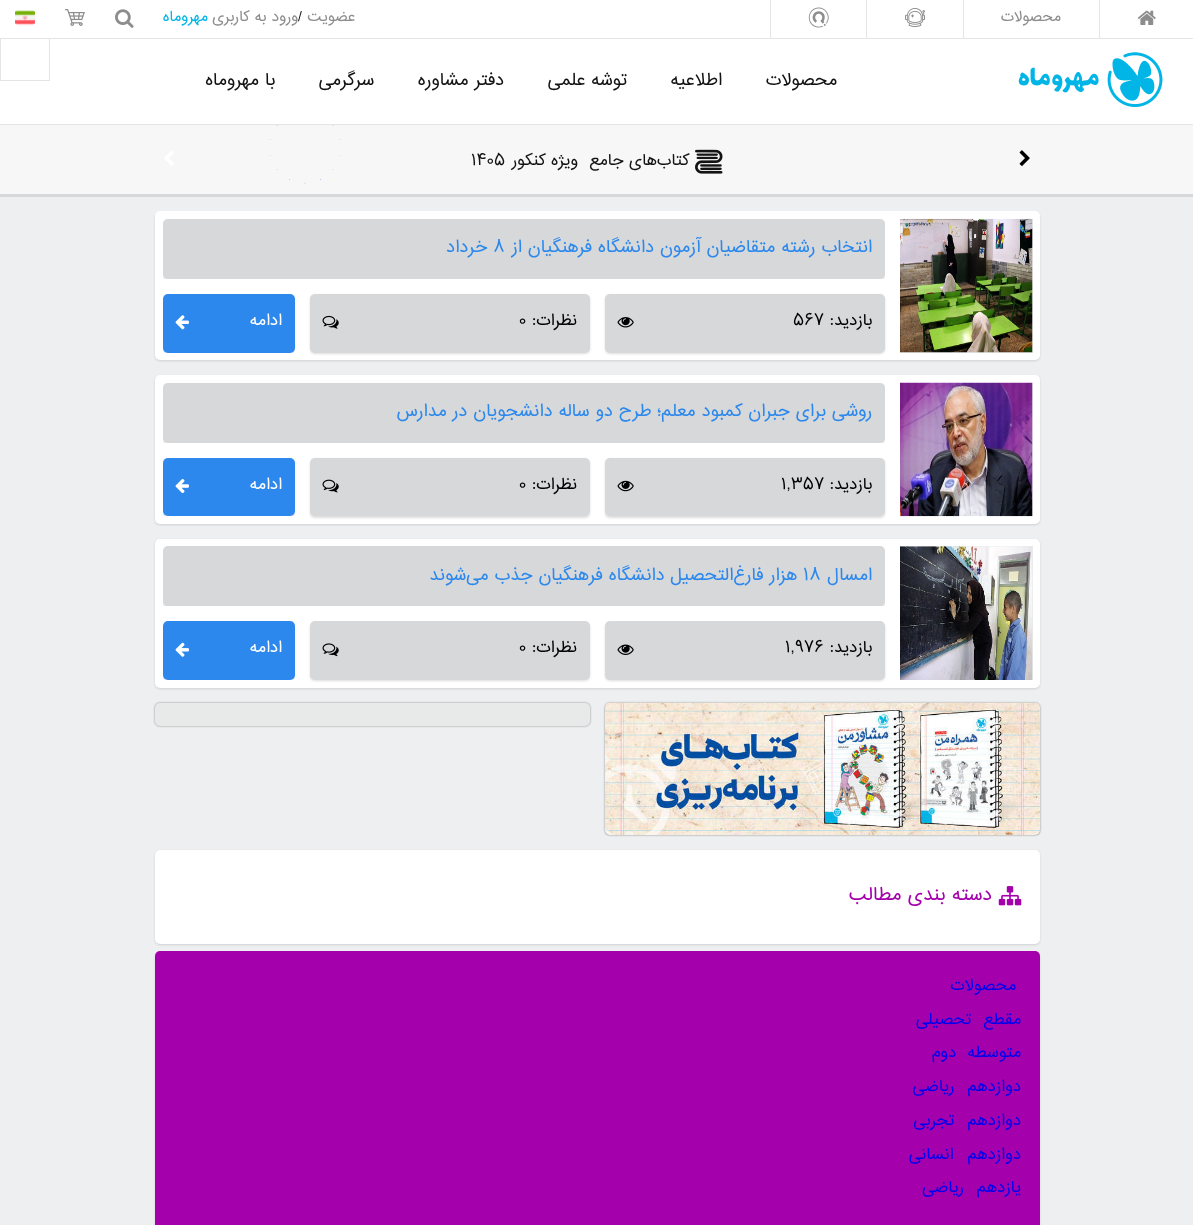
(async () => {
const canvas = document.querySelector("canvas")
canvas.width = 1193
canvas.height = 1225
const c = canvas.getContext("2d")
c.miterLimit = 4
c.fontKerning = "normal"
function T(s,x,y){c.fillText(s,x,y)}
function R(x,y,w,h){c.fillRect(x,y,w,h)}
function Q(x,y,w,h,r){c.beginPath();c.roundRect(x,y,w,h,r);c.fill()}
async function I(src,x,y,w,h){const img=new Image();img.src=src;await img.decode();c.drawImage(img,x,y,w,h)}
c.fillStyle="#edeff0"
R(0,0,1193,1225)
c.fillStyle="#fff"
R(0,0,1193,124)
c.fillStyle="#e5e5e5"
R(0,38,1193,1)
R(1099,0,1,38)
await I("1.png",1137,10,19,15)
R(963,0,1,38)
c.direction="rtl"
c.font="13.75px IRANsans"
c.fillStyle="#8d8d8d"
T("محصولات",1061,21)
c.fillStyle="#e5e5e5"
R(866,0,1,38)
await I("2.png",905,8,20,19)
R(770,0,1,38)
await I("3.png",808,7,21,21)
c.fillStyle="#8d8d8d"
T("عضویت",355,21)
c.direction="ltr"
c.fillStyle="#000"
T("/",298,21)
c.direction="rtl"
c.fillStyle="#8d8d8d"
T("ورود به کاربری",298,21)
c.fillStyle="#01b5e6"
T("مهروماه",208,21)
await I("4.png",115,9,19,19)
await I("5.png",65,9,20,17)
await I("6.png",15,10,20,16)
c.fillStyle="#e5e5e5"
R(49,39,1,42)
R(0,80,50,1)
R(0,39,1,42)
await I("7.png",1107,52,56,55)
await I("8.png",1018,67,81,26)
c.font="16.25px IRANsans"
c.fillStyle="#131313"
T("محصولات",837,85)
T("اطلاعیه",722,85)
T("توشه علمی",627,85)
T("دفتر مشاوره",504,85)
T("سرگرمی",374,85)
T("با مهروماه",275,85)
c.fillStyle="#f7f7f7"
R(0,125,1193,69)
c.fillStyle="#e5e5e5"
R(0,124,1193,1)
c.fillStyle="#d7d8da"
R(0,194,1193,3)
await I("9.png",1019,150,11,16)
c.font="15px IRANsans"
c.fillStyle="#131313"
T("کتاب‌های جامع",689,165)
T("ویژه کنکور",578,165)
await I("10.png",565,138,65,19)
await I("11.png",269,125,72,59)
await I("12.png",695,149,28,25)
c.direction="ltr"
T("1405",471,165)
await I("13.png",164,150,10,16)
c.fillStyle="#78787840"
c.filter="blur(1px)"
c.beginPath()
c.roundRect(155,213,885,148,5)
c.fill()
c.filter="none"
c.fillStyle="#fff"
Q(155,211,885,149,5)
c.fillStyle="#e8eaea"
R(900,219,133,134)
await I("14.png",900,218,133,135)
c.save()
c.beginPath()
c.rect(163,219,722,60)
c.clip()
c.fillStyle="#78787840"
c.filter="blur(1px)"
c.beginPath()
c.roundRect(163,220,722,60,5)
c.fill()
c.filter="none"
c.restore()
c.fillStyle="#d7d8da"
Q(163,219,722,60,5)
c.direction="rtl"
c.font="16.25px IRANsans"
c.fillStyle="#2c88ed"
T("انتخاب‌ رشته متقاضیان آزمون دانشگاه فرهنگیان از",872,252)
c.direction="ltr"
T("۸",493,252)
c.direction="rtl"
T("خرداد",487,252)
c.fillStyle="#78787840"
c.filter="blur(1px)"
c.beginPath()
c.roundRect(605,295,280,59,5)
c.fill()
c.filter="none"
c.fillStyle="#d7d8da"
Q(605,294,280,59,5)
c.font="15px IRANsans"
c.fillStyle="#000"
T("بازدید:",872,325)
c.direction="ltr"
T("567",793,325)
await I("15.png",617,317,17,11)
c.fillStyle="#78787840"
c.filter="blur(1px)"
c.beginPath()
c.roundRect(310,295,280,59,5)
c.fill()
c.filter="none"
c.fillStyle="#d7d8da"
Q(310,294,280,59,5)
c.direction="rtl"
c.fillStyle="#000"
T("نظرات:",577,325)
c.direction="ltr"
T("0",519,325)
await I("16.png",322,315,17,14)
c.save()
c.beginPath()
c.rect(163,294,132,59)
c.clip()
c.fillStyle="#78787840"
c.filter="blur(1px)"
c.beginPath()
c.roundRect(163,295,132,59,5)
c.fill()
c.filter="none"
c.restore()
c.fillStyle="#2c88ed"
Q(163,294,132,59,5)
c.direction="rtl"
c.fillStyle="#fff"
T("ادامه",282,325)
await I("17.png",175,315,14,15)
c.fillStyle="#78787840"
c.filter="blur(1px)"
c.beginPath()
c.roundRect(155,376,885,149,5)
c.fill()
c.filter="none"
c.fillStyle="#fff"
Q(155,375,885,149,5)
c.fillStyle="#e8eaea"
R(1032,383,1,133)
await I("18.png",900,382,133,135)
c.save()
c.beginPath()
c.rect(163,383,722,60)
c.clip()
c.fillStyle="#78787840"
c.filter="blur(1px)"
c.beginPath()
c.roundRect(163,384,722,60,5)
c.fill()
c.filter="none"
c.restore()
c.fillStyle="#d7d8da"
Q(163,383,722,60,5)
c.font="16.25px IRANsans"
c.fillStyle="#2c88ed"
T("روشی برای جبران کمبود معلم؛ طرح دو ساله دانشجویان در مدارس",872,416)
c.fillStyle="#78787840"
c.filter="blur(1px)"
c.beginPath()
c.roundRect(605,459,280,59,5)
c.fill()
c.filter="none"
c.fillStyle="#d7d8da"
Q(605,458,280,58,5)
c.font="15px IRANsans"
c.fillStyle="#000"
T("بازدید:",872,489)
c.direction="ltr"
T("1,357",781,489)
await I("19.png",617,480,17,12)
c.fillStyle="#78787840"
c.filter="blur(1px)"
c.beginPath()
c.roundRect(310,459,280,59,5)
c.fill()
c.filter="none"
c.fillStyle="#d7d8da"
Q(310,458,280,58,5)
c.direction="rtl"
c.fillStyle="#000"
T("نظرات:",577,489)
c.direction="ltr"
T("0",519,489)
await I("20.png",322,479,17,14)
c.save()
c.beginPath()
c.rect(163,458,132,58)
c.clip()
c.fillStyle="#78787840"
c.filter="blur(1px)"
c.beginPath()
c.roundRect(163,459,132,59,5)
c.fill()
c.filter="none"
c.restore()
c.fillStyle="#2c88ed"
Q(163,458,132,58,5)
c.direction="rtl"
c.fillStyle="#fff"
T("ادامه",282,489)
await I("21.png",175,479,14,15)
c.fillStyle="#78787840"
c.filter="blur(1px)"
c.beginPath()
c.roundRect(155,540,885,149,5)
c.fill()
c.filter="none"
c.fillStyle="#fff"
Q(155,539,885,149,5)
c.fillStyle="#e8eaea"
R(900,546,133,134)
await I("22.png",900,546,133,134)
c.save()
c.beginPath()
c.rect(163,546,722,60)
c.clip()
c.fillStyle="#78787840"
c.filter="blur(1px)"
c.beginPath()
c.roundRect(163,548,722,60,5)
c.fill()
c.filter="none"
c.restore()
c.fillStyle="#d7d8da"
Q(163,546,722,60,5)
c.font="16.25px IRANsans"
c.fillStyle="#2c88ed"
T("امسال",872,580)
c.direction="ltr"
T("18",803,580)
c.direction="rtl"
T("هزار فارغ‌التحصیل دانشگاه فرهنگیان جذب می‌شوند",797,580)
c.fillStyle="#78787840"
c.filter="blur(1px)"
c.beginPath()
c.roundRect(605,623,280,58,5)
c.fill()
c.filter="none"
c.fillStyle="#d7d8da"
Q(605,621,280,59,5)
c.font="15px IRANsans"
c.fillStyle="#000"
T("بازدید:",872,652)
c.direction="ltr"
T("1,976",785,652)
await I("23.png",617,644,17,11)
c.fillStyle="#78787840"
c.filter="blur(1px)"
c.beginPath()
c.roundRect(310,623,280,58,5)
c.fill()
c.filter="none"
c.fillStyle="#d7d8da"
Q(310,621,280,59,5)
c.direction="rtl"
c.fillStyle="#000"
T("نظرات:",577,652)
c.direction="ltr"
T("0",519,652)
await I("24.png",322,643,17,14)
c.save()
c.beginPath()
c.rect(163,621,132,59)
c.clip()
c.fillStyle="#78787840"
c.filter="blur(1px)"
c.beginPath()
c.roundRect(163,623,132,58,5)
c.fill()
c.filter="none"
c.restore()
c.fillStyle="#2c88ed"
Q(163,621,132,59,5)
c.direction="rtl"
c.fillStyle="#fff"
T("ادامه",282,652)
await I("25.png",175,642,14,15)
c.fillStyle="#00000066"
c.filter="blur(1px)"
c.beginPath()
c.roundRect(605,703,435,132,5)
c.fill()
c.filter="none"
c.fillStyle="#e8eaea"
Q(605,703,435,132,5)
c.save()
c.beginPath()
c.rect(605,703,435,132)
c.clip()
c.fillStyle="#78787840"
c.filter="blur(1px)"
c.beginPath()
c.roundRect(605,704,435,132,5)
c.fill()
c.filter="none"
c.restore()
await I("26.png",605,702,435,133)
c.fillStyle="#00000066"
c.filter="blur(1px)"
c.beginPath()
c.roundRect(155,703,435,23,5)
c.fill()
c.filter="none"
c.fillStyle="#e8eaea"
Q(155,703,435,23,5)
c.fillStyle="#78787840"
c.filter="blur(1px)"
c.beginPath()
c.roundRect(155,851,885,94,5)
c.fill()
c.filter="none"
c.fillStyle="#fff"
Q(155,850,885,94,5)
await I("27.png",998,886,24,20)
c.font="17.5px IRANsans"
c.fillStyle="#a400ac"
T("دسته بندی مطالب",992,900)
c.fillStyle="#78787840"
c.filter="blur(1px)"
c.beginPath()
c.roundRect(155,953,885,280,5)
c.fill()
c.filter="none"
c.fillStyle="#a400ac"
Q(155,951,885,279,5)
c.letterSpacing="-0.6px"
c.font="15px IRANsans"
c.fillStyle="#00e"
T("محصولات",1016,990)
c.wordSpacing="7px"
T("مقطع تحصیلی",1021,1024)
c.wordSpacing="6px"
T("متوسطه دوم",1021,1057)
c.wordSpacing="8px"
T("دوازدهم ریاضی",1021,1091)
T("دوازدهم تجربی",1021,1125)
c.wordSpacing="9px"
T("دوازدهم انسانی",1021,1159)
c.wordSpacing="8px"
T("یازدهم ریاضی",1021,1192)
})()
